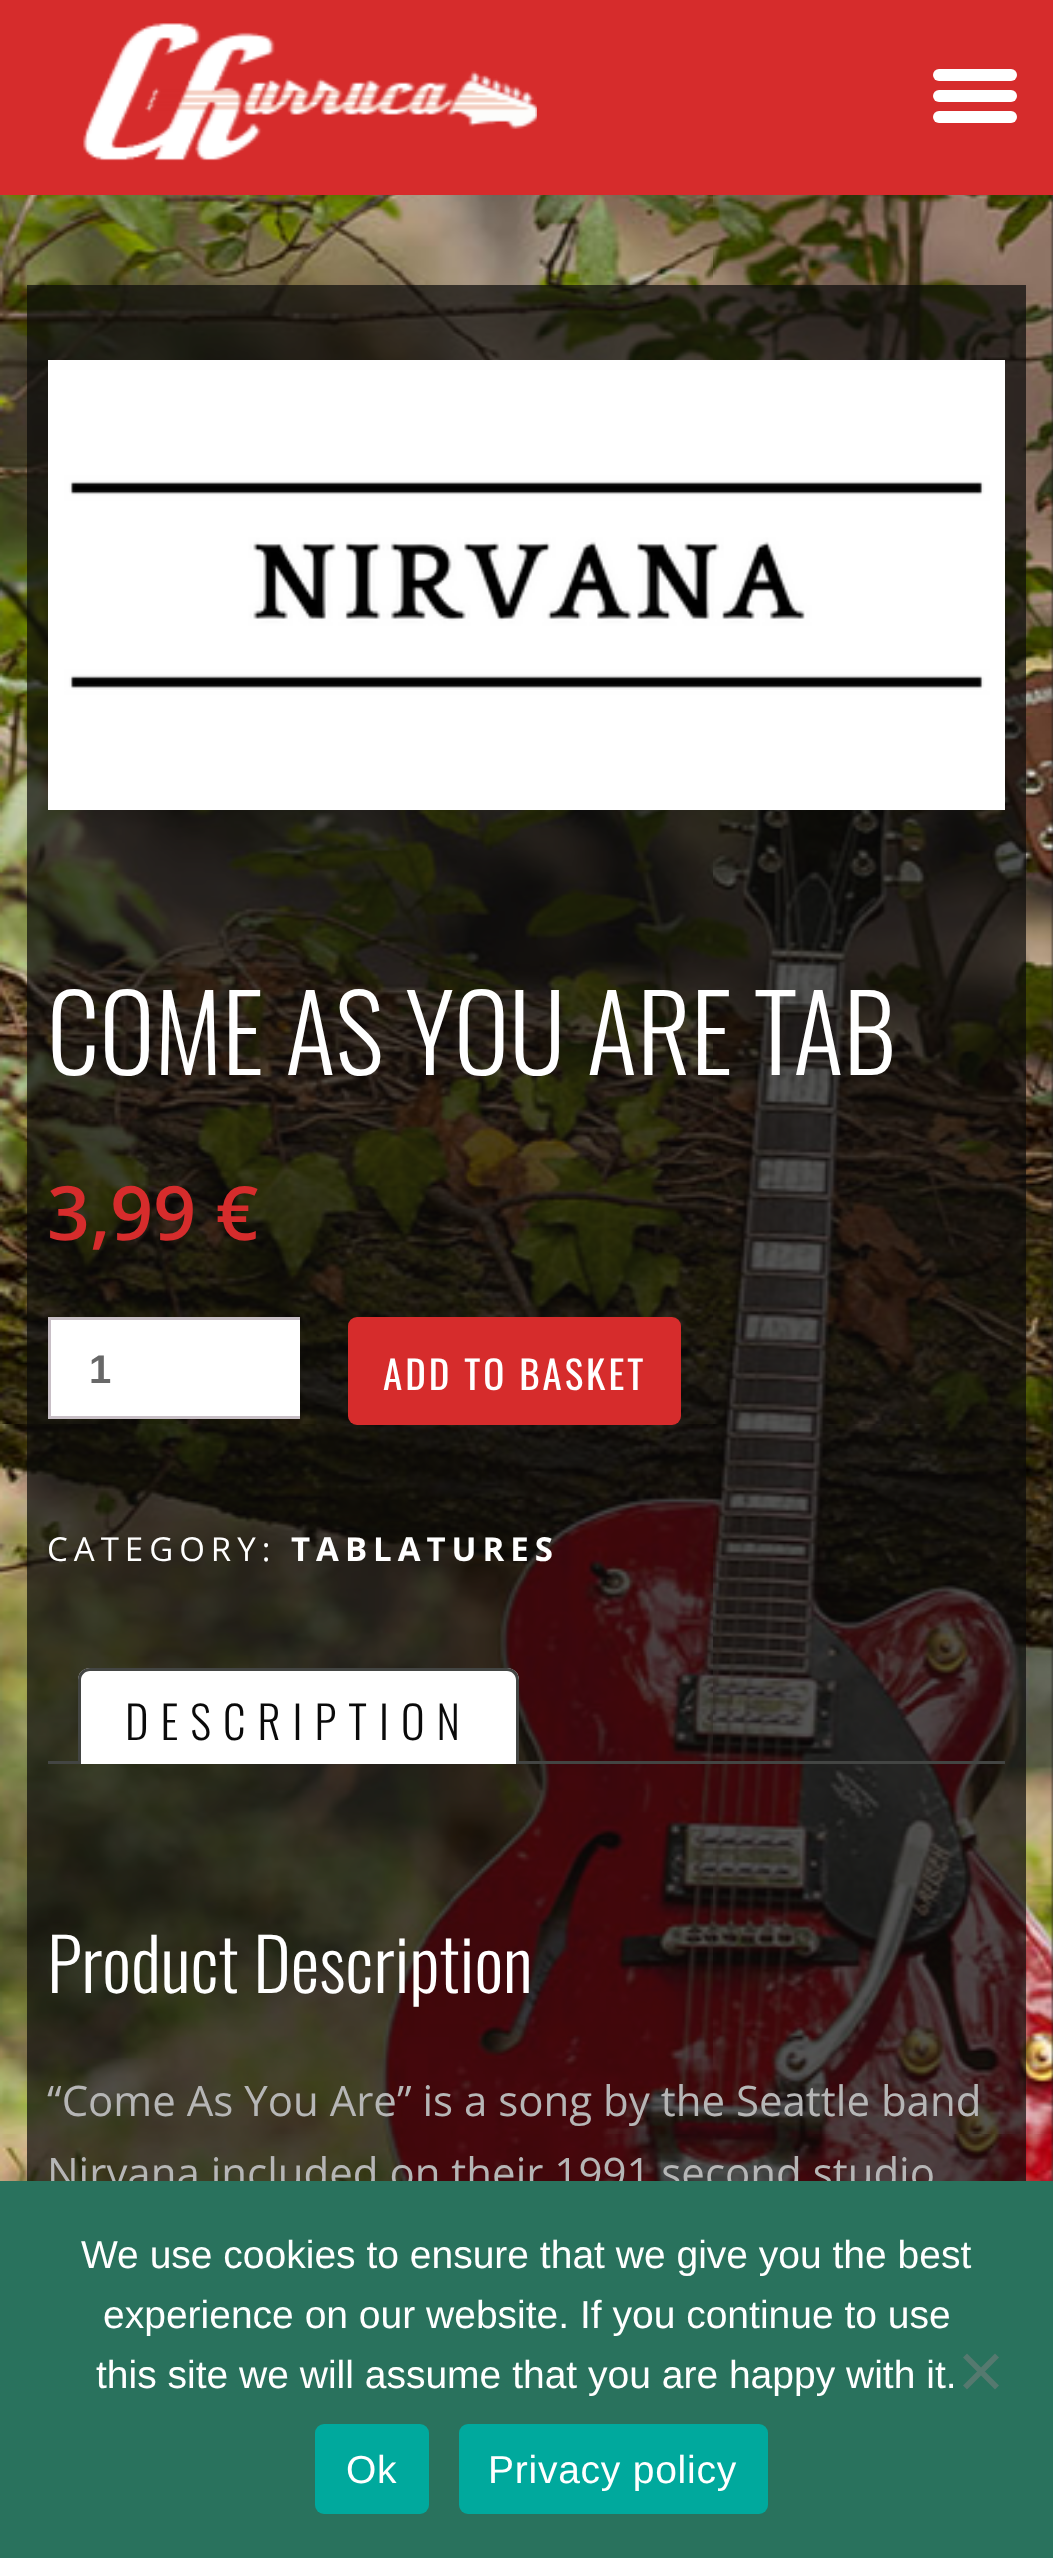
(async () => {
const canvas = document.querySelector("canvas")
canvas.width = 1053
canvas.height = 2558
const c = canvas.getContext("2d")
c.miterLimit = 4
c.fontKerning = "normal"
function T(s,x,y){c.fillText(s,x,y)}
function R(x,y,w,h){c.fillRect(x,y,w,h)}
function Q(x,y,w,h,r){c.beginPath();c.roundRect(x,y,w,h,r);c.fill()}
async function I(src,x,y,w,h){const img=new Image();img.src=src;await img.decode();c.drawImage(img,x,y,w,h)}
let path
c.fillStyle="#1c2023"
R(0,0,1053,2558)
c.fillStyle="#d62c2c"
R(0,0,1053,195)
await I("1.png",83,23,454,138)
c.fillStyle="#fff"
Q(933,69,84,12,6)
Q(933,90,84,12,6)
Q(933,111,84,12,6)
await I("2.png",0,195,1053,1986)
c.fillStyle="#0a0a0ab3"
R(27,285,999,1896)
await I("3.png",48,360,957,450)
c.font="300 105px Oswald"
c.fillStyle="#fff"
T("COME AS YOU ARE TAB",47,1075)
c.font="600 75px Open Sans"
c.fillStyle="#d62c2c"
T("3,99 €",47,1240)
c.fillStyle="#fff"
R(51,1320,249,96)
c.fillStyle="#c8bfc6"
R(48,1317,252,3)
R(48,1416,252,3)
R(48,1317,3,102)
c.font="bold 40px Liberation Sans"
c.fillStyle="#686868"
T("1",89,1383)
c.fillStyle="#d62c2c"
Q(348,1317,333,108,9)
c.letterSpacing="3px"
c.font="39px Oswald"
c.fillStyle="#fff"
T("ADD TO BASKET",383,1390)
c.letterSpacing="6px"
c.font="33px Open Sans"
T("CATEGORY:",47,1561)
c.font="bold 33px Open Sans"
T("TABLATURES",291,1561)
c.fillStyle="#434543"
R(48,1761,957,3)
c.fillStyle="#fff"
c.beginPath()
c.roundRect(78,1668,441,96,[12,12,0,0])
c.fill()
c.fillStyle="#434543"
path = new Path2D("M90 1668h417c7 0 12 5 12 12v84h-441v-84c0-7 5-12 12-12zm0 3h417c5 0 9 4 9 9v84h-435v-84c0-5 4-9 9-9z")
c.fill(path,"evenodd")
c.letterSpacing="12px"
c.font="300 45px Oswald"
c.fillStyle="#0a0a0a"
T("DESCRIPTION",125,1740)
c.letterSpacing="0px"
c.font="300 72px Oswald"
c.fillStyle="#fff"
T("Product Description",47,1993)
c.font="42px Open Sans"
c.fillStyle="#b6b6b6"
T("“Come As You Are” is a song by the Seattle band",47,2116)
T("Nirvana included on their 1991 second studio",47,2188)
c.fillStyle="#29725d"
R(0,2181,1053,377)
c.font="39px Liberation Sans"
c.fillStyle="#fff"
T("We use cookies to ensure that we give you the best",81,2268)
T("experience on our website. If you continue to use",103,2328)
T("this site we will assume that you are happy with it.",96,2388)
c.fillStyle="#55796f"
path = new Path2D("M995 2353.5l4 4l-32 32l-4-4z")
c.fill(path)
path = new Path2D("M963 2357.5l4-4l32 32l-4 4z")
c.fill(path)
c.fillStyle="#00a99d"
Q(315,2424,114,90,9)
c.letterSpacing="0.75px"
c.fillStyle="#fff"
T("Ok",346,2483)
c.fillStyle="#00a99d"
Q(459,2424,309,90,9)
c.fillStyle="#fff"
T("Privacy policy",488,2483)
})()
